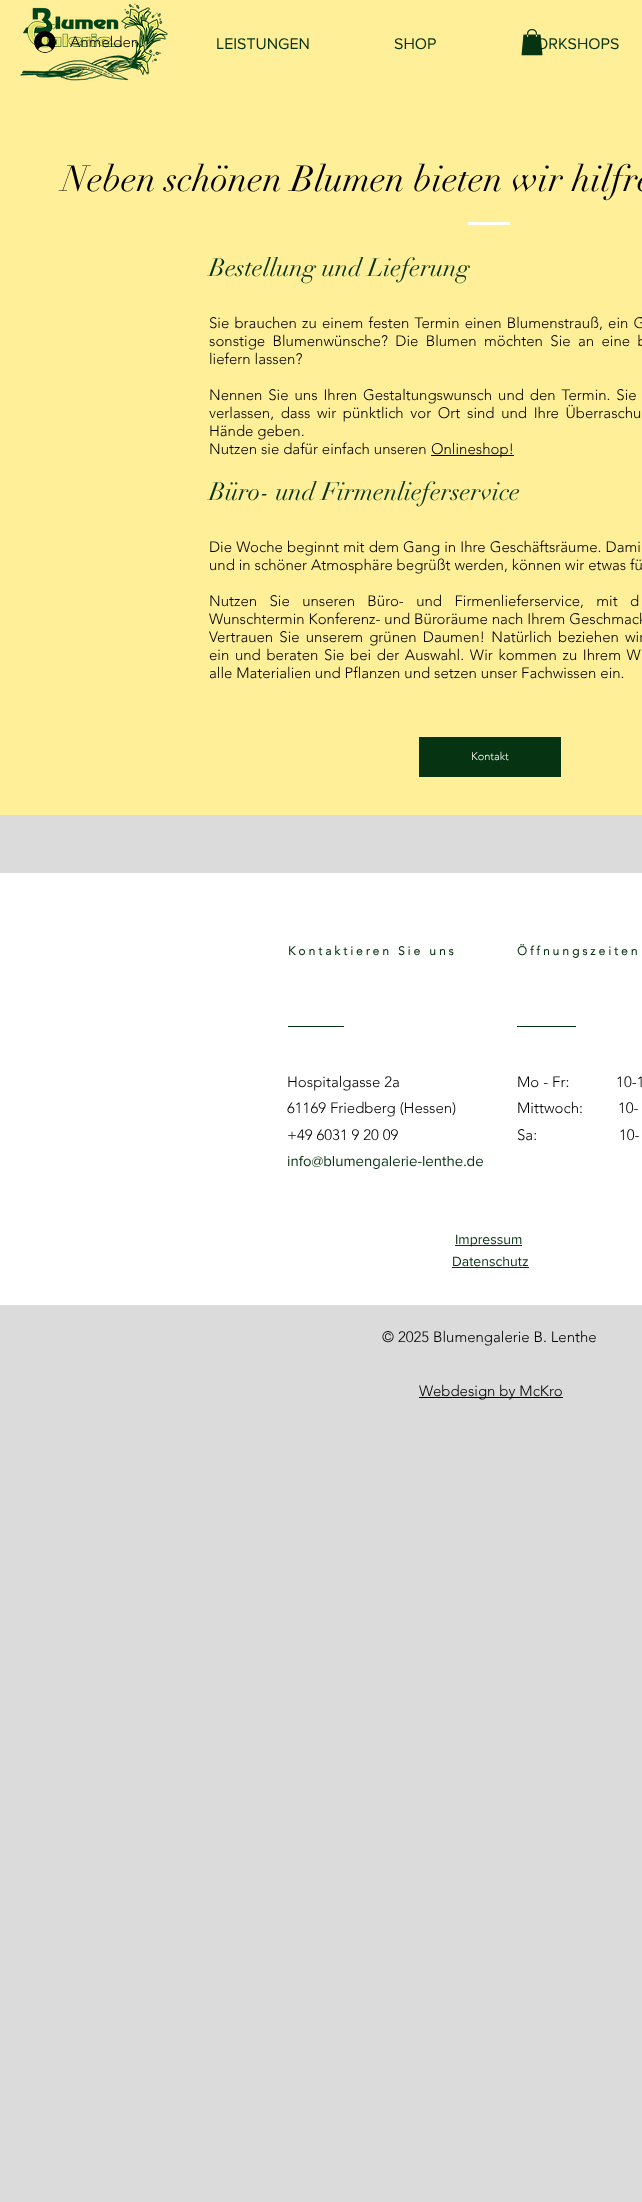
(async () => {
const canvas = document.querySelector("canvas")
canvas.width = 642
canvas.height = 2202
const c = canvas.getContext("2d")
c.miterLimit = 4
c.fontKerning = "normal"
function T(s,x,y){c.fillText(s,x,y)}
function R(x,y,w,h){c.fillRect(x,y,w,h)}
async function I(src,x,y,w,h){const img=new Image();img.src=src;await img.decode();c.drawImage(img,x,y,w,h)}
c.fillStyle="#dbdbdb"
R(0,0,642,2202)
c.fillStyle="#ffef98"
R(0,0,642,815)
await I("3.png",20,3,148,78)
await I("1.png",34,31,22,22)
c.font="300 15px 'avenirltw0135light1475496'"
c.fillStyle="#000"
T("Anmelden",70,47)
c.font="16px 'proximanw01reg'"
c.fillStyle="#063311"
T("ORKSHOPS",536,49)
await I("2.png",521,29,22,27)
T("LEISTUNGEN",216,49)
T("SHOP",394,49)
c.font="36px didot"
c.fillStyle="#000"
T("Neben schönen Blumen bieten wir hilfre",62,191)
c.fillStyle="#fff"
R(468,222,42,3)
c.font="25px didot"
c.fillStyle="#063311"
T("Bestellung und Lieferung",209,276)
c.wordSpacing="1.25px"
c.font="300 15px 'avenirltw0135light1475496'"
c.fillStyle="#000"
T("Sie brauchen zu einem festen Termin einen Blumenstrauß, ein G",209,328)
c.wordSpacing="3.5px"
T("sonstige Blumenwünsche? Die Blumen möchten Sie an eine b",209,346)
c.wordSpacing="0px"
T("liefern lassen?",209,364)
c.wordSpacing="2px"
T("Nennen Sie uns Ihren Gestaltungswunsch und den Termin. Sie",209,400)
c.wordSpacing="2.75px"
T("verlassen, dass wir pünktlich vor Ort sind und Ihre Überraschu",209,418)
c.wordSpacing="0px"
T("Hände geben.",209,436)
T("Nutzen sie dafür einfach unseren",209,454)
R(431,455,83,1)
T("Onlineshop!",431,454)
c.font="25px didot"
c.fillStyle="#063311"
T("Büro- und Firmenlieferservice",209,500)
c.wordSpacing="0.25px"
c.font="300 15px 'avenirltw0135light1475496'"
c.fillStyle="#000"
T("Die Woche beginnt mit dem Gang in Ihre Geschäftsräume. Dami",209,552)
c.wordSpacing="0px"
T("und in schöner Atmosphäre begrüßt werden, können wir etwas fü",209,570)
c.wordSpacing="8.5px"
T("Nutzen Sie unseren Büro- und Firmenlieferservice, mit d",209,606)
c.wordSpacing="0px"
T("Wunschtermin Konferenz- und Büroräume nach Ihrem Geschmack",209,624)
c.wordSpacing="2.25px"
T("Vertrauen Sie unserem grünen Daumen! Natürlich beziehen wir",209,642)
c.wordSpacing="1.75px"
T("ein und beraten Sie bei der Auswahl. Wir kommen zu Ihrem W",209,660)
c.wordSpacing="0px"
T("alle Materialien und Pflanzen und setzen unser Fachwissen ein.",209,678)
c.fillStyle="#063311"
R(419,737,142,40)
c.font="300 11px 'avenirltw0135light1475496'"
c.fillStyle="#fff"
T("Kontakt",471,760)
R(0,873,642,432)
c.letterSpacing="3px"
c.font="bold 12px 'avenirltw0135light1475496'"
c.fillStyle="#063311"
T("Kontaktieren Sie uns",288,955)
T("Öffnungszeiten",517,955)
R(288,1026,56,1)
R(517,1026,59,1)
c.letterSpacing="0px"
c.font="300 15px 'avenirltw0135light1475496'"
c.fillStyle="#000"
T("Hospitalgasse 2a",287,1087)
T("61169 Friedberg (Hessen)",287,1113)
T("+49 6031 9 20 09",287,1140)
c.font="15px 'proximanw01reg'"
c.fillStyle="#063311"
T("info@blumengalerie-lenthe.de",287,1166)
c.font="300 15px 'avenirltw0135light1475496'"
c.fillStyle="#000"
T("Mo - Fr:            10-1",517,1087)
T("Mittwoch:         10-",517,1113)
T("Sa:                     10-",517,1140)
c.fillStyle="#063311"
R(455,1245,67,1)
c.font="14px 'proximanw01reg'"
T("Impressum",455,1244)
T("Datenschutz",452,1266)
R(452,1267,77,1)
c.font="300 15px 'avenirltw0135light1475496'"
c.fillStyle="#000"
T("© 2025 Blumengalerie B. Lenthe",382,1342)
R(419,1397,144,1)
T("Webdesign by McKro",419,1396)
})()
